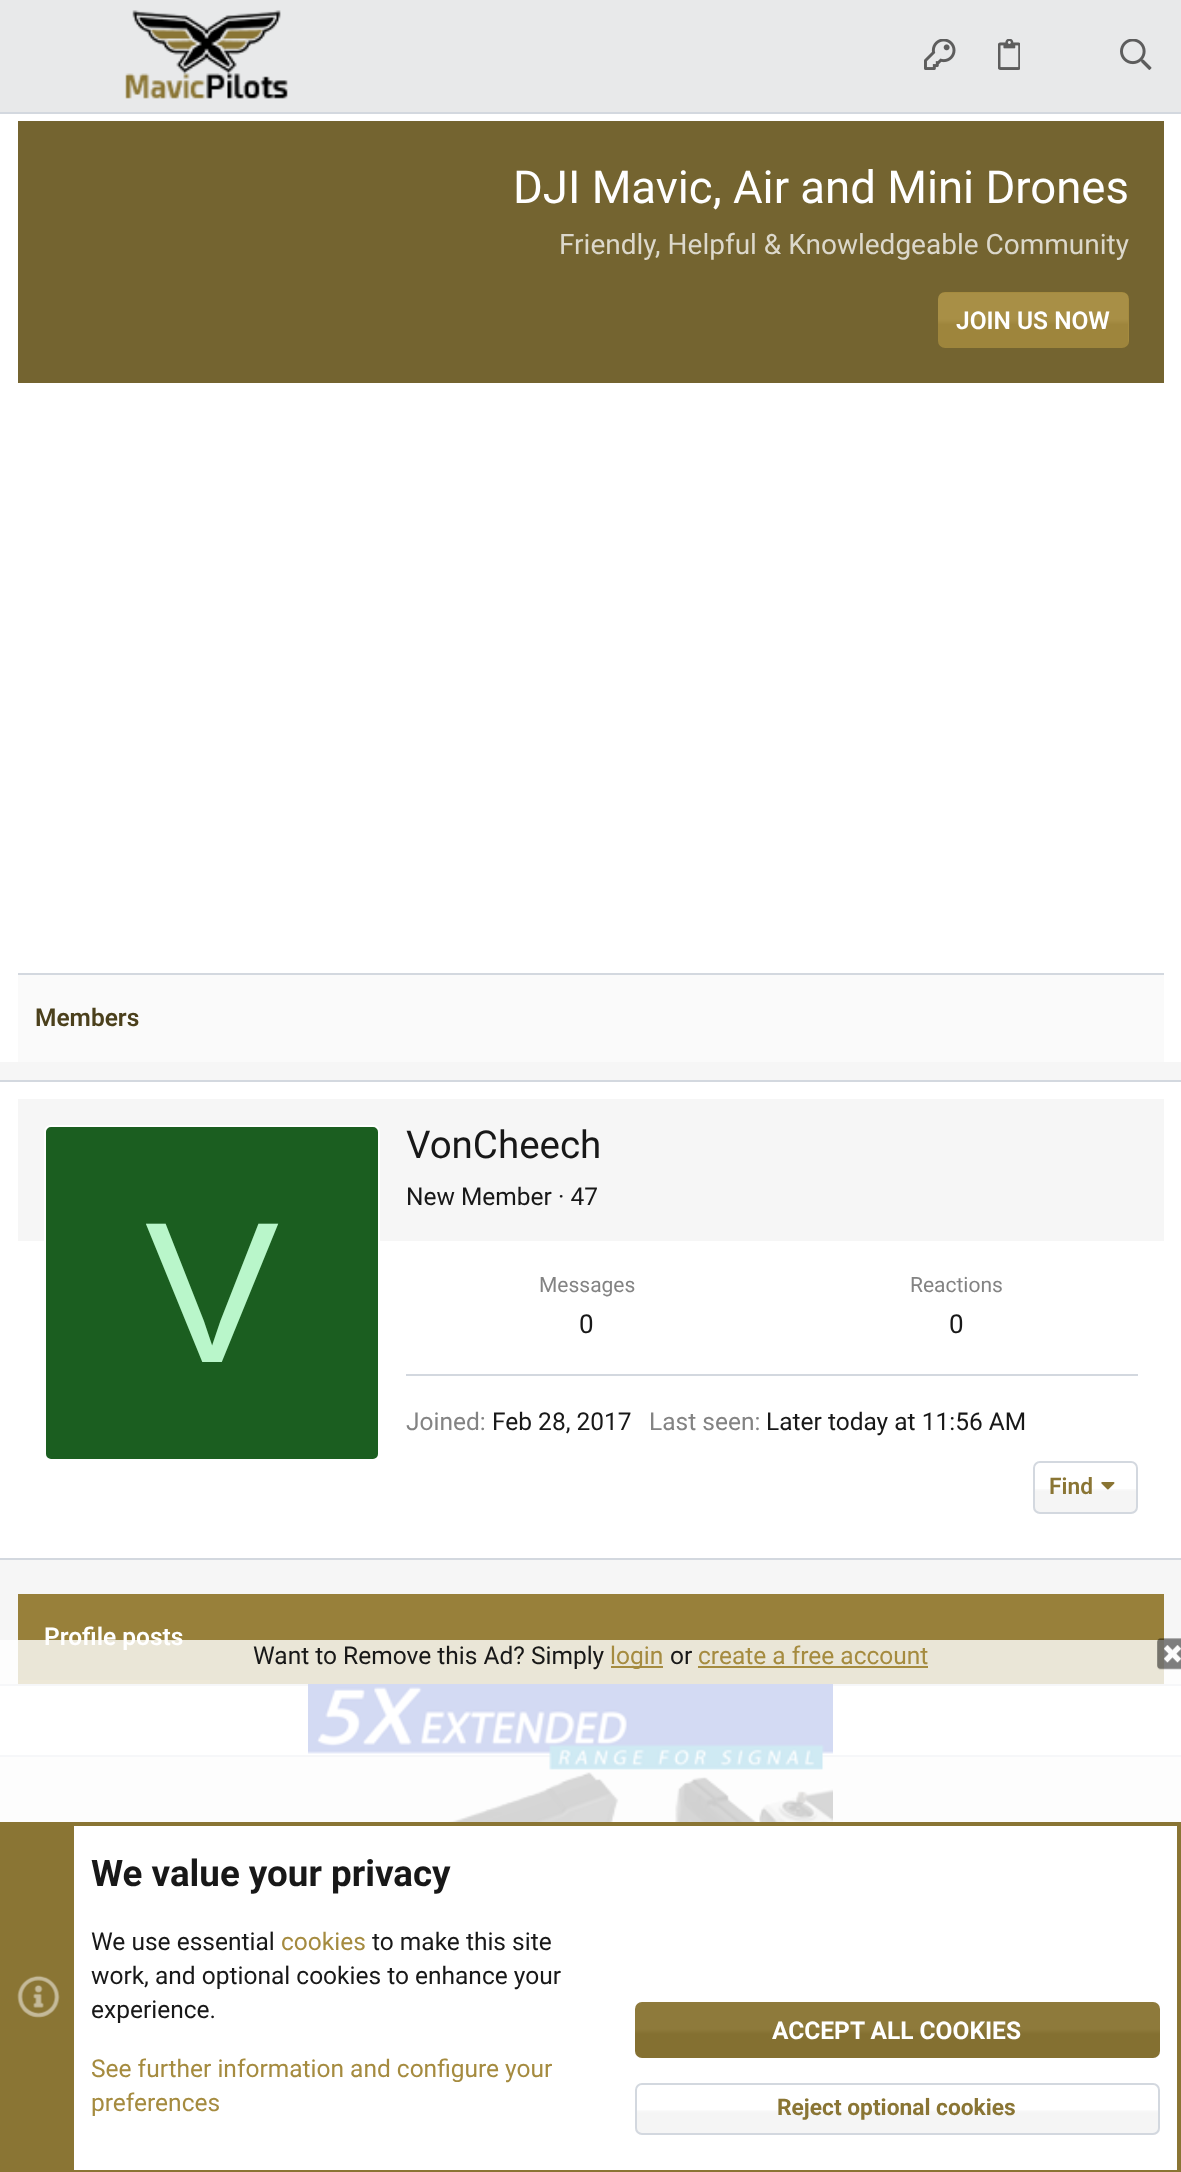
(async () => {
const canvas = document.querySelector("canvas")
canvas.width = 1181
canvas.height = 2172
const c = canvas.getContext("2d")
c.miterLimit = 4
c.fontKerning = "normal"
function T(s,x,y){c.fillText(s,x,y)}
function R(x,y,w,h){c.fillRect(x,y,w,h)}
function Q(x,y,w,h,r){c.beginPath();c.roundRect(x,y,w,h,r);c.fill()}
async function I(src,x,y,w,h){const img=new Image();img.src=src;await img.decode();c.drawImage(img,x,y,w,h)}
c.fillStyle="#fff"
R(0,0,1181,2172)
c.fillStyle="#e8e9ea"
R(0,0,1181,112)
c.fillStyle="#d3d8df"
R(0,112,1181,2)
await I("1.png",125,10,163,89)
await I("2.png",924,39,32,31)
await I("3.png",998,39,22,31)
await I("4.png",1120,39,32,31)
c.fillStyle="#746430"
R(18,121,1146,262)
c.font="45.5px Roboto"
c.fillStyle="#fff"
T("DJI Mavic, Air and Mini Drones",513,203)
c.font="28px Roboto"
c.fillStyle="#dcd8cb"
T("Friendly, Helpful & Knowledgeable Community",559,254)
c.fillStyle="#a58b3f"
Q(938,292,191,56,7)
await I("5.png",938,293,190,55)
c.font="600 24.5px Roboto"
c.fillStyle="#fff"
T("JOIN US NOW",956,329)
c.fillStyle="#fafafa"
R(18,975,1146,87)
c.fillStyle="#d3d8df"
R(18,973,1146,2)
c.fillStyle="#4b401c"
T("Members",35,1026)
c.fillStyle="#f6f6f6"
R(0,1062,1181,760)
c.fillStyle="#fff"
R(0,1082,1181,476)
c.fillStyle="#d3d8df"
R(0,1080,1181,2)
R(0,1558,1181,2)
c.fillStyle="#f6f6f6"
R(18,1099,1146,142)
c.font="38.5px Roboto"
c.fillStyle="#181818"
T("VonCheech",406,1158)
c.font="24.5px Roboto"
T("New Member · 47",406,1205)
c.fillStyle="#1b5e20"
c.beginPath()
c.roundRect(45,1126,334,334,6)
c.fill()
c.strokeStyle="#fff"
c.lineWidth=2
c.stroke()
c.font="201px Liberation Sans"
c.fillStyle="#b9f6ca"
T("V",145,1362)
c.font="21px Roboto"
c.fillStyle="#838383"
T("Messages",539,1292)
c.font="26px Roboto"
c.fillStyle="#181818"
T("0",579,1333)
c.font="21px Roboto"
c.fillStyle="#838383"
T("Reactions",910,1292)
c.font="26px Roboto"
c.fillStyle="#181818"
T("0",949,1333)
c.fillStyle="#d3d8df"
R(406,1374,732,2)
c.font="24.5px Roboto"
c.fillStyle="#838383"
T("Joined:",406,1430)
c.fillStyle="#181818"
T("Feb 28, 2017",492,1430)
c.fillStyle="#838383"
T("Last seen:",649,1430)
c.fillStyle="#181818"
T("Later today at 11:56 AM",766,1430)
await I("6.png",1033,1489,103,24)
c.beginPath()
c.roundRect(1034,1462,103,51,6)
c.strokeStyle="#d3d8df"
c.stroke()
c.font="600 22.75px Roboto"
c.fillStyle="#8a7534"
T("Find",1049,1494)
await I("7.png",1101,1482,14,8)
c.fillStyle="#98803a"
R(18,1594,1146,90)
c.fillStyle="#a58b3f"
R(18,1680,192,4)
c.font="600 24.5px Roboto"
c.fillStyle="#fff"
T("Profile posts",44,1645)
R(0,1686,1181,69)
c.fillStyle="#d3d8df"
R(0,1684,1181,2)
R(0,1755,1181,2)
await I("8.png",308,1684,525,138)
c.fillStyle="#ffffffcc"
R(0,1640,1181,182)
c.font="24.5px Roboto"
c.fillStyle="#181818"
T("Want to Remove this Ad? Simply",253,1664)
c.fillStyle="#a58b3f"
R(611,1666,52,2)
T("login",610,1664)
c.fillStyle="#181818"
T("or",670,1664)
c.fillStyle="#a58b3f"
T("create a free account",698,1664)
R(698,1666,230,2)
await I("9.png",1157,1638,24,32)
c.strokeStyle="#8a7534"
c.lineWidth=4
c.strokeRect(2,1824,1177,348)
c.fillStyle="#8a7534"
R(4,1826,70,344)
await I("10.png",17,1975,43,43)
c.font="bold 36.75px Roboto"
c.fillStyle="#181818"
T("We value your privacy",91,1886)
c.font="24.5px Roboto"
T("We use essential",91,1950)
c.fillStyle="#a58b3f"
T("cookies",281,1950)
c.fillStyle="#181818"
T("to make this site",372,1950)
T("work, and optional cookies to enhance your",91,1984)
T("experience.",91,2018)
c.fillStyle="#a58b3f"
T("See further information and configure your",91,2077)
T("preferences",91,2111)
c.fillStyle="#8a7534"
Q(635,2002,525,56,7)
await I("11.png",635,2002,525,56)
c.font="bold 24.5px Roboto"
c.fillStyle="#fff"
T("ACCEPT ALL COOKIES",772,2039)
await I("12.png",635,2110,525,25)
c.beginPath()
c.roundRect(636,2084,523,50,6)
c.strokeStyle="#d3d8df"
c.lineWidth=2
c.stroke()
c.font="bold 22.75px Roboto"
c.fillStyle="#8a7534"
T("Reject optional cookies",777,2115)
})()
